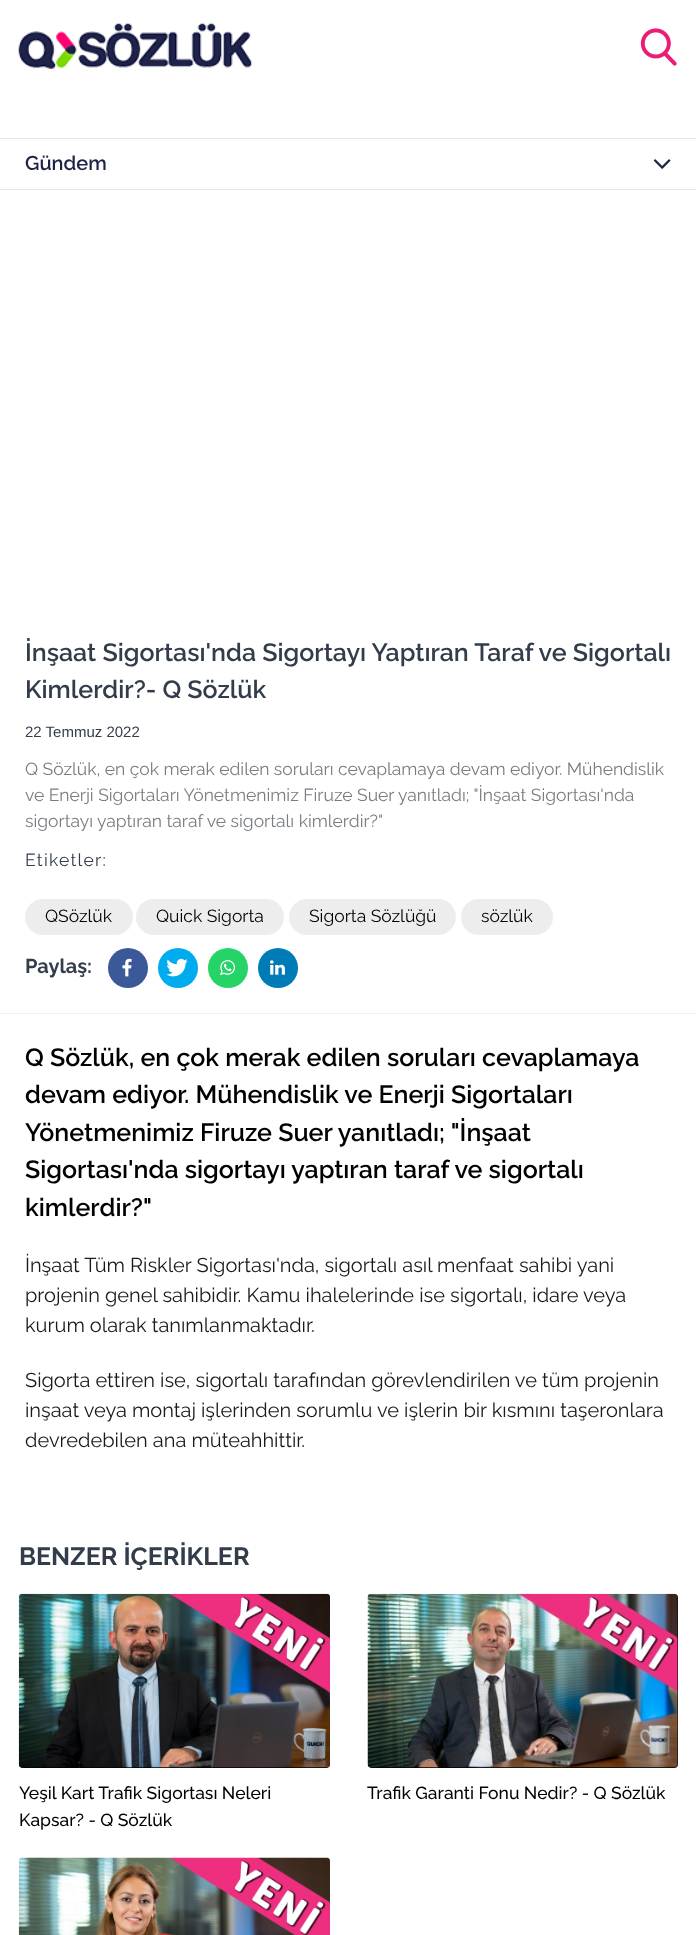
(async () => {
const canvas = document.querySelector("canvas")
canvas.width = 696
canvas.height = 1935
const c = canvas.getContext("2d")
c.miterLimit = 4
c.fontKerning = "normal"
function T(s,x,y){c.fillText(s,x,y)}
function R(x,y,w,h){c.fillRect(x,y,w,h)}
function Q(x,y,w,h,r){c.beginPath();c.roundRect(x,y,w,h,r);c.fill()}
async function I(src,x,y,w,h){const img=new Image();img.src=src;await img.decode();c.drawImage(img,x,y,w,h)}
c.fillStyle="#fff"
R(0,0,696,1935)
await I("1.png",18,23,234,46)
await I("2.png",640,28,37,38)
c.fillStyle="#e6e6e6"
R(0,138,696,1)
R(0,189,696,1)
c.font="600 20px Raleway"
c.fillStyle="#1f2346"
T("Gündem",25,170)
await I("3.png",653,159,18,10)
c.fillStyle="#ecf1f5"
R(0,1013,696,1)
c.font="600 25px Raleway"
c.fillStyle="#323c4b"
T("İnşaat Sigortası'nda Sigortayı Yaptıran Taraf ve Sigortalı",25,661)
T("Kimlerdir?- Q Sözlük",25,698)
c.font="15px Liberation Sans"
T("22 Temmuz 2022",25,737)
c.font="17.5px Raleway"
c.fillStyle="#787d82"
T("Q Sözlük, en çok merak edilen soruları cevaplamaya devam ediyor. Mühendislik",25,775)
T("ve Enerji Sigortaları Yönetmenimiz Firuze Suer yanıtladı; \"İnşaat Sigortası'nda",25,801)
T("sigortayı yaptıran taraf ve sigortalı kimlerdir?\"",25,827)
c.letterSpacing="1.25px"
c.fillStyle="#323c4b"
T("Etiketler:",25,866)
c.fillStyle="#ededed"
Q(25,899,108,36,18)
c.letterSpacing="0px"
c.fillStyle="#000"
T("QSözlük",45,922)
c.fillStyle="#ededed"
Q(136,899,148,36,18)
c.fillStyle="#000"
T("Quick Sigorta",156,922)
c.fillStyle="#ededed"
Q(289,899,167,36,18)
c.fillStyle="#000"
T("Sigorta Sözlüğü",309,922)
c.fillStyle="#ededed"
Q(461,899,92,36,18)
c.fillStyle="#000"
T("sözlük",481,922)
c.font="bold 20px Raleway"
c.fillStyle="#323c4b"
T("Paylaş:",25,973)
c.fillStyle="#3b5998"
c.beginPath()
c.arc(128,968,20,0,7)
c.fill()
await I("4.png",122,958,10,19)
c.fillStyle="#00aced"
c.beginPath()
c.arc(178,968,20,0,7)
c.fill()
await I("5.png",166,958,22,19)
c.fillStyle="#25d366"
c.beginPath()
c.arc(228,968,20,0,7)
c.fill()
await I("6.png",220,960,15,16)
c.fillStyle="#007bb6"
c.beginPath()
c.arc(278,968,20,0,7)
c.fill()
await I("7.png",270,960,15,15)
c.font="600 25px Raleway"
c.fillStyle="#000"
T("Q Sözlük, en çok merak edilen soruları cevaplamaya",25,1066)
T("devam ediyor. Mühendislik ve Enerji Sigortaları",25,1103)
T("Yönetmenimiz Firuze Suer yanıtladı; \"İnşaat",25,1141)
T("Sigortası'nda sigortayı yaptıran taraf ve sigortalı",25,1178)
T("kimlerdir?\"",25,1216)
c.font="20px Raleway"
c.fillStyle="#1a1a1a"
T("İnşaat Tüm Riskler Sigortası'nda, sigortalı asıl menfaat sahibi yani",25,1272)
T("projenin genel sahibidir. Kamu ihalelerinde ise sigortalı, idare veya",25,1302)
T("kurum olarak tanımlanmaktadır.",25,1332)
T("Sigorta ettiren ise, sigortalı tarafından görevlendirilen ve tüm projenin",25,1387)
T("inşaat veya montaj işlerinden sorumlu ve işlerin bir kısmını taşeronlara",25,1417)
T("devredebilen ana müteahhittir.",25,1447)
c.font="bold 25px Raleway"
c.fillStyle="#323c4b"
T("BENZER İÇERİKLER",19,1565)
c.fillStyle="#000"
Q(19,1594,311,174,4)
await I("8.png",18,1593,312,175)
c.font="500 17.5px Raleway"
T("Yeşil Kart Trafik Sigortası Neleri",19,1799)
T("Kapsar? - Q Sözlük",19,1826)
Q(368,1594,310,174,4)
await I("9.png",367,1593,311,175)
T("Trafik Garanti Fonu Nedir? - Q Sözlük",367,1799)
await I("10.png",18,1857,312,78)
})()
